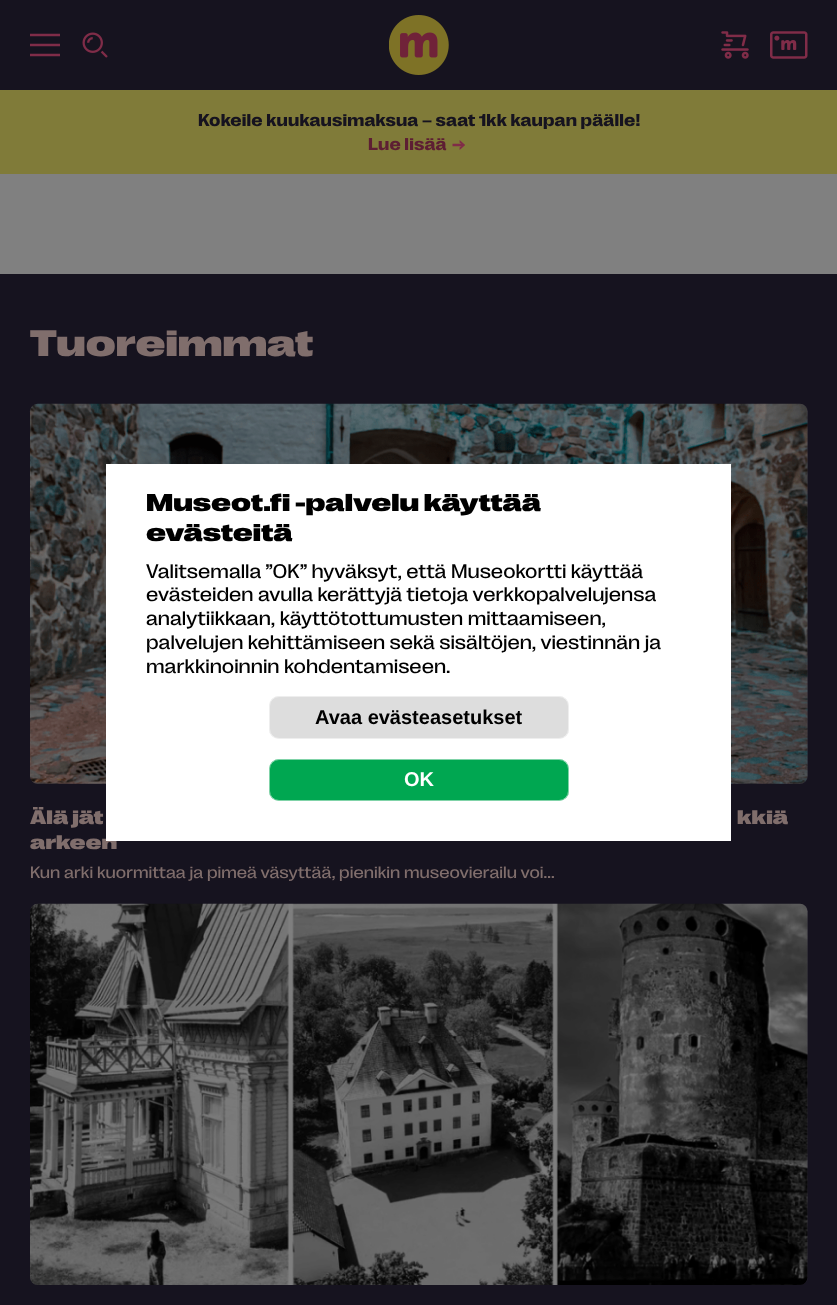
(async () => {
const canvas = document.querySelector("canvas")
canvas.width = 837
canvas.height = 1305
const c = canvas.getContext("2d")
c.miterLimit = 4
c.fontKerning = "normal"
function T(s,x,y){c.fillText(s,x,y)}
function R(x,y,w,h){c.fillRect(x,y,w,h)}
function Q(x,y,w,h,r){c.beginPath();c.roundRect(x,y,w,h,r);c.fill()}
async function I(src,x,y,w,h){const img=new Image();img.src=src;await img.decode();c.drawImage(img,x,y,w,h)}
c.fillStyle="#808080"
R(0,0,837,1305)
c.fillStyle="#16131f"
R(0,0,837,90)
await I("1.png",30,33,30,24)
await I("2.png",82,32,26,26)
await I("3.png",389,15,60,60)
await I("4.png",721,31,28,28)
await I("5.png",770,31,38,28)
c.fillStyle="#807b39"
R(0,90,837,84)
c.letterSpacing="0.15px"
c.font="bold 17.5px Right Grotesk"
c.fillStyle="#16131f"
T("Kokeile kuukausimaksua – saat 1kk kaupan päälle!",198,126)
await I("6.png",452,140,13,10)
c.fillStyle="#5d1e33"
T("Lue lisää",368,150)
c.fillStyle="#16131f"
R(0,274,837,1031)
c.letterSpacing="0px"
c.font="800 37.5px Right Grotesk"
c.fillStyle="#806e6c"
T("Tuoreimmat",30,356)
c.fillStyle="#221e2c"
Q(30,404,778,380,8)
await I("7.png",29,403,779,381)
c.font="800 20px Right Grotesk"
c.fillStyle="#806e6c"
T("Älä jät",30,824)
T("kkiä",737,824)
T("arkeen",30,849)
c.font="16.8px Right Grotesk"
T("Kun arki kuormittaa ja pimeä väsyttää, pienikin museovierailu voi...",30,878)
c.fillStyle="#221e2c"
Q(30,904,778,381,8)
await I("8.png",30,903,778,382)
c.fillStyle="#fff"
R(106,464,625,377)
c.font="800 25px Right Grotesk"
c.fillStyle="#000"
T("Museot.fi -palvelu käyttää",146,511)
T("evästeitä",146,541)
c.font="20px Right Grotesk"
T("Valitsemalla ”OK” hyväksyt, että Museokortti käyttää",146,578)
T("evästeiden avulla kerättyjä tietoja verkkopalvelujensa",146,601)
T("analytiikkaan, käyttötottumusten mittaamiseen,",146,625)
T("palvelujen kehittämiseen sekä sisältöjen, viestinnän ja",146,649)
T("markkinoinnin kohdentamiseen.",146,673)
c.fillStyle="#ddd"
Q(269,696,300,43,10)
c.beginPath()
c.roundRect(269.5,696.5,299,42,9.5)
c.strokeStyle="#ffffff80"
c.stroke()
c.font="bold 20px Liberation Sans"
c.fillStyle="#000"
T("Avaa evästeasetukset",315,724)
c.fillStyle="#00a751"
Q(269,759,300,42,10)
c.beginPath()
c.roundRect(269.5,759.5,299,41,9.5)
c.stroke()
c.fillStyle="#fff"
T("OK",404,786)
})()
